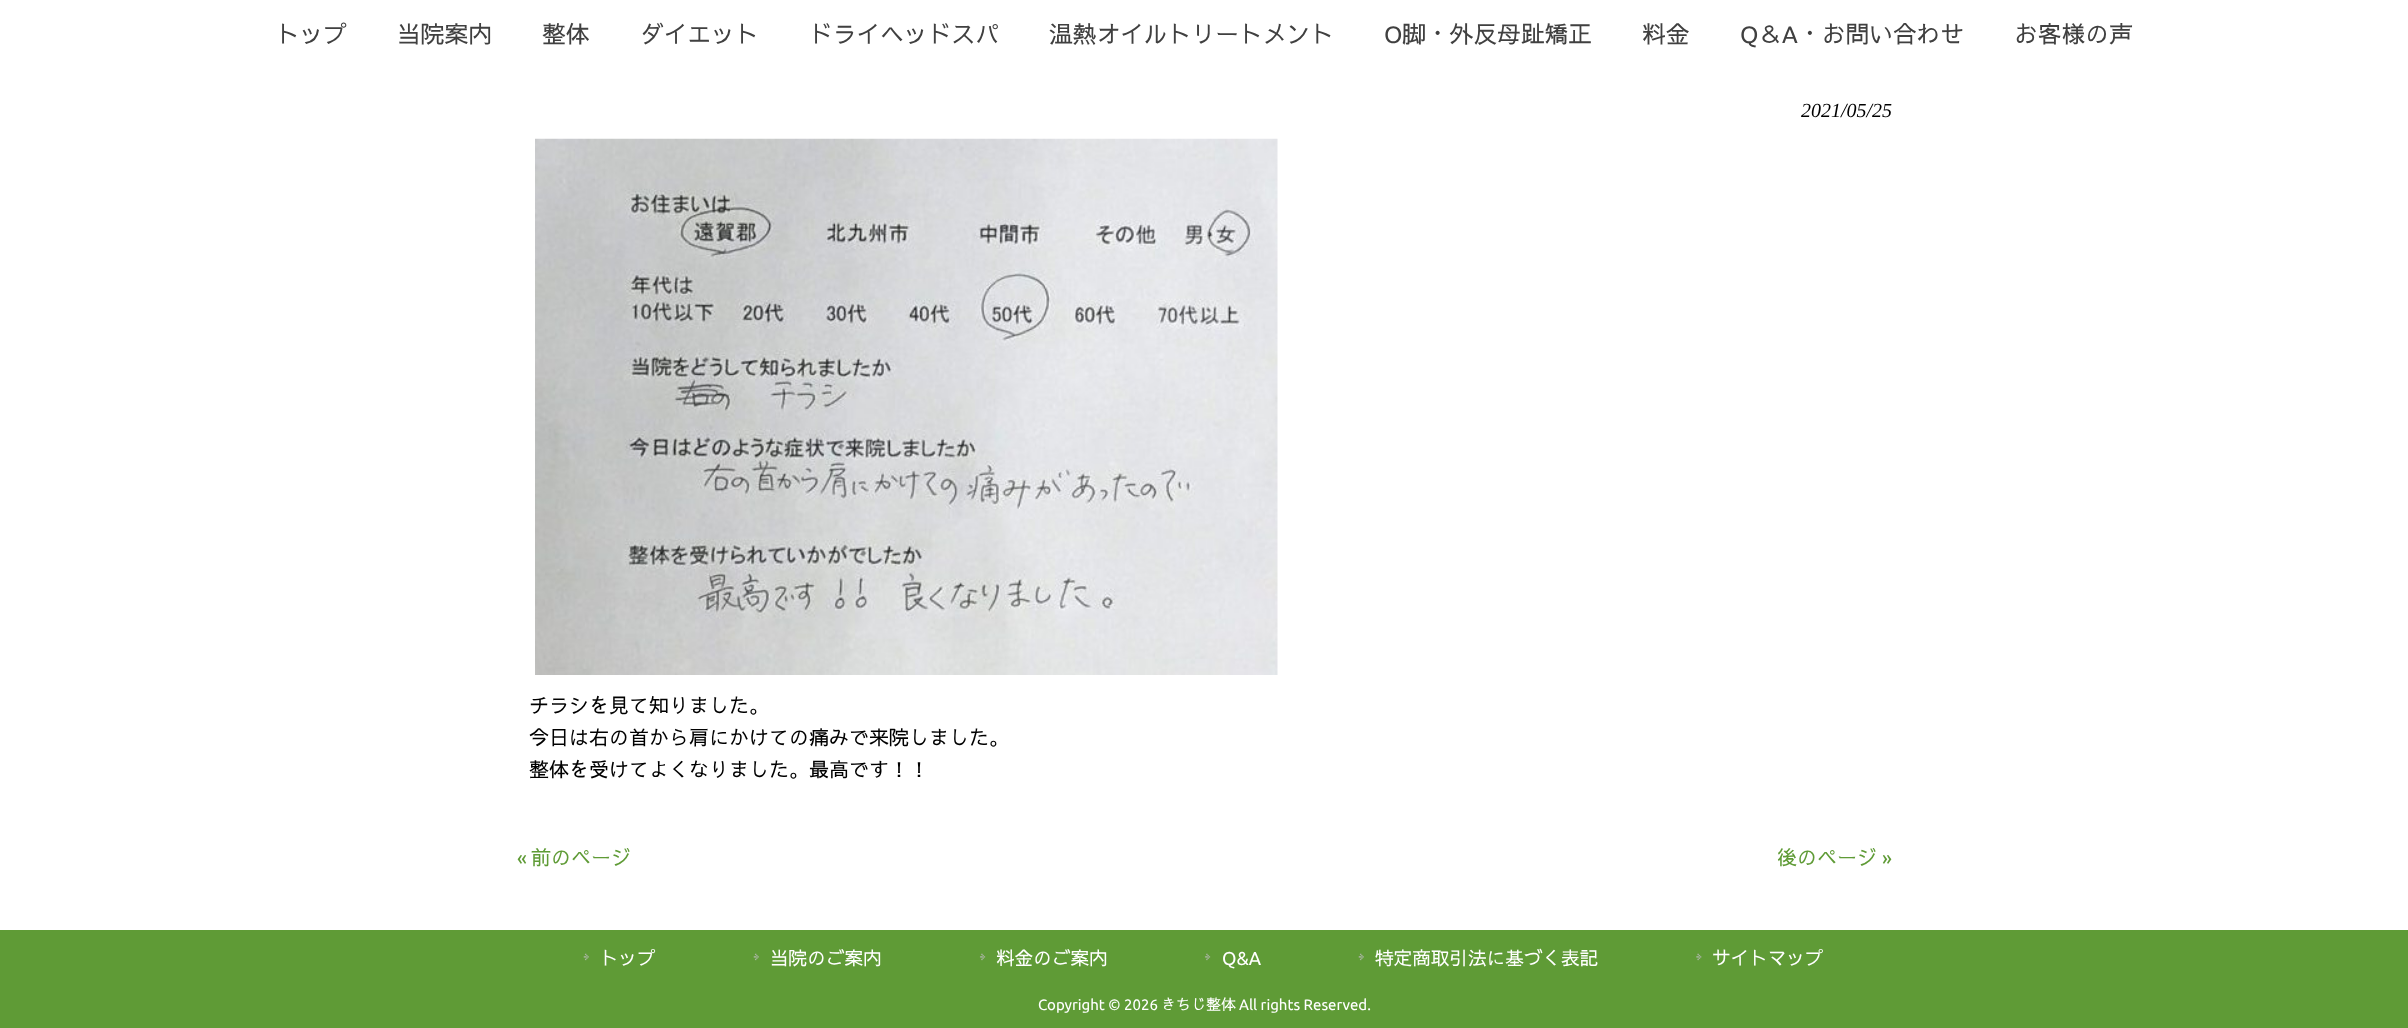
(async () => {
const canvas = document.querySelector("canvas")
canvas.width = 2408
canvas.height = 1028
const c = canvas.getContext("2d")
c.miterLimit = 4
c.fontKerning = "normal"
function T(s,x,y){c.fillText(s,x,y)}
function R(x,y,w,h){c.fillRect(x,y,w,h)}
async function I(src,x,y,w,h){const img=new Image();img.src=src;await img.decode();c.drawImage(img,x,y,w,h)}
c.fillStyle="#fff"
R(0,0,2408,1028)
c.font="23.75px Sawarabi Gothic"
c.fillStyle="#404040"
T("トップ",276,43)
T("当院案内",397,43)
T("整体",542,43)
T("ダイエット",640,43)
T("ドライヘッドスパ",809,43)
T("温熱オイルトリートメント",1049,43)
c.font="23.75px Ubuntu"
T("O",1384,43)
c.font="23.75px Sawarabi Gothic"
T("脚・外反母趾矯正",1402,43)
T("料金",1642,43)
c.font="23.75px Ubuntu"
T("Q",1740,43)
c.font="23.75px Sawarabi Gothic"
T("＆",1758,43)
c.font="23.75px Ubuntu"
T("A",1782,43)
c.font="23.75px Sawarabi Gothic"
T("・お問い合わせ",1798,43)
T("お客様の声",2014,43)
c.font="italic 20px Liberation Serif"
c.fillStyle="#000"
T("2021/05/25",1801,117)
await I("1.png",535,138,743,537)
c.font="20px Sawarabi Gothic"
T("チラシを見て知りました。",529,713)
T("今日は右の首から肩にかけての痛みで来院しました。",529,745)
T("整体を受けてよくなりました。最高です！！",529,777)
c.font="20px Ubuntu"
c.fillStyle="#5f9b36"
T("«",517,865)
c.font="20px Sawarabi Gothic"
T("前のページ",531,865)
T("後のページ",1777,865)
c.font="20px Ubuntu"
T("»",1882,865)
R(0,930,2408,98)
await I("2.png",583,953,6,8)
c.font="18.6px Sawarabi Gothic"
c.fillStyle="#fff"
T("トップ",600,965)
await I("2.png",753,953,6,8)
T("当院のご案内",770,965)
await I("3.png",979,953,7,8)
T("料金のご案内",996,965)
await I("4.png",1204,953,7,8)
c.font="18.6px Ubuntu"
T("Q&A",1222,965)
await I("2.png",1358,953,6,8)
c.font="18.6px Sawarabi Gothic"
T("特定商取引法に基づく表記",1375,965)
await I("5.png",1696,953,6,8)
T("サイトマップ",1712,965)
c.font="15px Ubuntu"
T("Copyright © 2026",1038,1010)
c.font="15px Sawarabi Gothic"
T("きちじ整体",1161,1010)
c.font="15px Ubuntu"
T("All rights Reserved.",1239,1010)
})()
